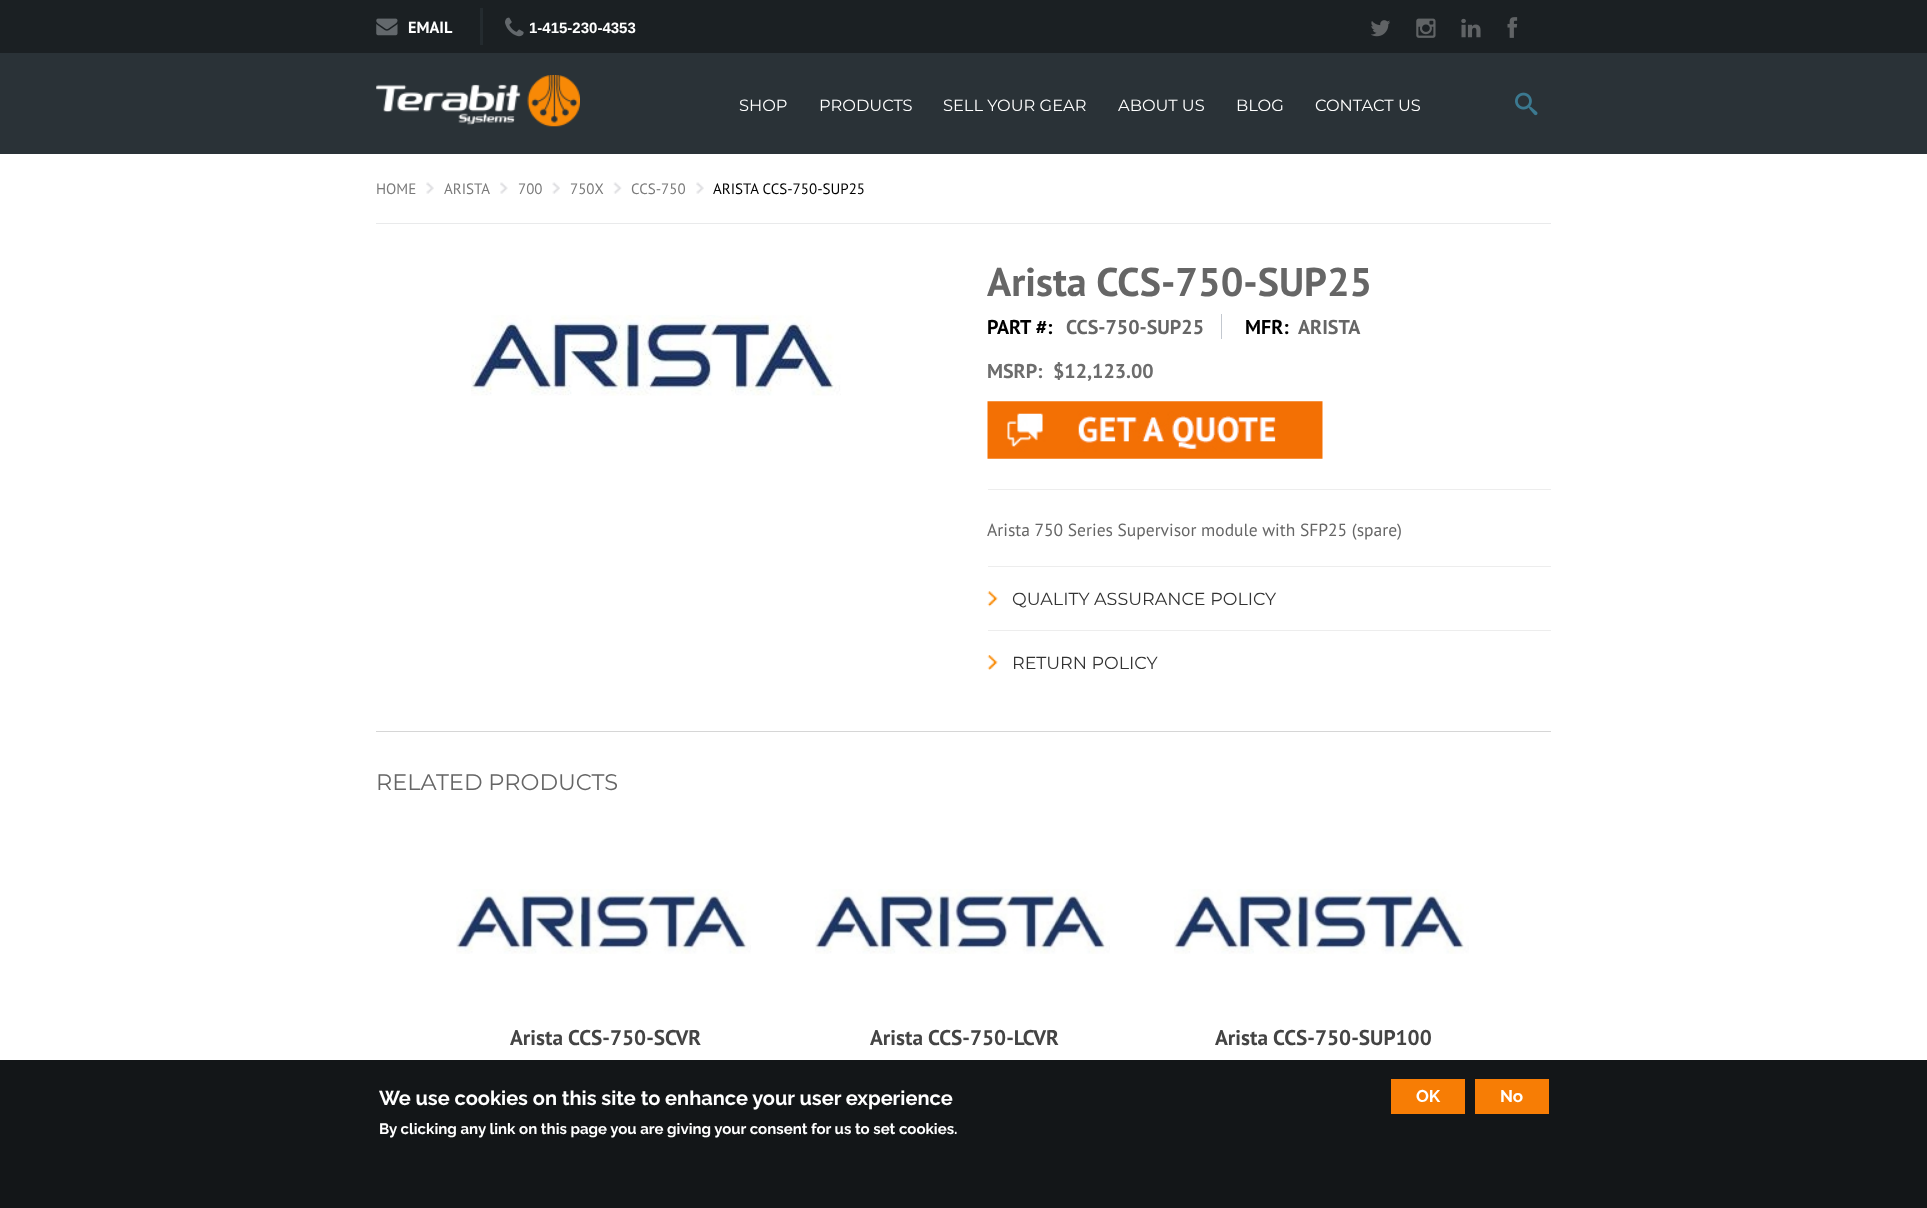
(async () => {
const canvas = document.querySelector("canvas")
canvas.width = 1927
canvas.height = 1208
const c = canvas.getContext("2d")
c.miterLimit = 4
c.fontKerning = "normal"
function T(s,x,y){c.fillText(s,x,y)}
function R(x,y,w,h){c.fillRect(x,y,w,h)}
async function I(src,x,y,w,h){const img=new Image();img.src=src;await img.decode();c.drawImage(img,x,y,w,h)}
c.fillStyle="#fff"
R(0,0,1927,1208)
c.fillStyle="#1b2023"
R(0,0,1927,53)
c.fillStyle="#242b2f"
R(480,8,3,37)
await I("1.png",376,18,22,18)
c.font="bold 16.25px PT Sans"
c.fillStyle="#fff"
T("EMAIL",408,33)
await I("2.png",505,17,19,20)
c.font="bold 15px Liberation Sans"
T("1-415-230-4353",529,33)
await I("3.png",1371,20,19,17)
await I("4.png",1416,18,20,20)
await I("5.png",1461,18,20,20)
await I("6.png",1507,17,11,21)
c.fillStyle="#2a3237"
R(0,53,1927,101)
await I("7.png",376,75,204,52)
c.font="16.25px Montserrat"
c.fillStyle="#fff"
T("SHOP",739,111)
T("PRODUCTS",819,111)
T("SELL YOUR GEAR",943,111)
T("ABOUT US",1118,111)
T("BLOG",1236,111)
T("CONTACT US",1315,111)
await I("8.png",1515,92,23,24)
c.fillStyle="#e9eaeb"
R(376,223,1175,1)
c.font="15px PT Sans"
c.fillStyle="#7a7a7a"
T("HOME",376,194)
await I("9.png",426,182,8,12)
T("ARISTA",444,194)
await I("10.png",500,182,8,12)
T("700",518,194)
await I("11.png",552,182,8,12)
T("750X",570,194)
await I("12.png",613,182,9,12)
T("CCS-750",631,194)
await I("9.png",696,182,8,12)
c.fillStyle="#000"
T("ARISTA CCS-750-SUP25",713,194)
await I("13.png",471,315,370,81)
c.font="bold 40px PT Sans"
c.fillStyle="#666"
T("Arista CCS-750-SUP25",987,296)
c.fillStyle="#c3c8cf"
R(1221,314,1,25)
c.font="bold 20px PT Sans"
c.fillStyle="#000"
T("PART #:",987,334)
c.fillStyle="#666"
T("CCS-750-SUP25",1066,334)
c.fillStyle="#000"
T("MFR:",1245,334)
c.fillStyle="#666"
T("ARISTA",1298,334)
c.fillStyle="#6d6d6d"
T("MSRP:",987,378)
T("$12,123.00",1053,378)
c.fillStyle="#ededed"
R(988,489,563,1)
await I("14.png",987,401,336,58)
c.font="17.5px PT Sans"
c.fillStyle="#666"
T("Arista 750 Series Supervisor module with SFP25 (spare)",987,536)
c.fillStyle="#ededed"
R(988,566,563,1)
await I("15.png",987,591,11,16)
c.font="17.5px Montserrat"
c.fillStyle="#333"
T("QUALITY ASSURANCE POLICY",1012,605)
c.fillStyle="#ededed"
R(988,630,563,1)
await I("16.png",987,655,11,15)
c.fillStyle="#333"
T("RETURN POLICY",1012,669)
c.fillStyle="#d6d6d6"
R(376,731,1175,1)
c.font="22.5px Montserrat"
c.fillStyle="#666"
T("RELATED PRODUCTS",376,790)
await I("17.png",456,889,295,65)
c.font="bold 21.25px PT Sans"
c.fillStyle="#444"
T("Arista CCS-750-SCVR",510,1045)
await I("18.png",815,889,295,65)
T("Arista CCS-750-LCVR",870,1045)
await I("19.png",1174,889,295,65)
T("Arista CCS-750-SUP100",1215,1045)
c.fillStyle="#131618"
R(0,1060,1927,148)
c.font="bold 20px Raleway"
c.fillStyle="#fff"
T("We use cookies on this site to enhance your user experience",379,1105)
c.font="bold 15px Raleway"
T("By clicking any link on this page you are giving your consent for us to set cookies.",379,1134)
c.fillStyle="#f77d05"
R(1391,1079,74,35)
c.font="bold 17px Raleway"
c.fillStyle="#fff"
T("OK",1416,1102)
c.fillStyle="#f77d05"
R(1475,1079,74,35)
c.fillStyle="#fff"
T("No",1500,1102)
})()
